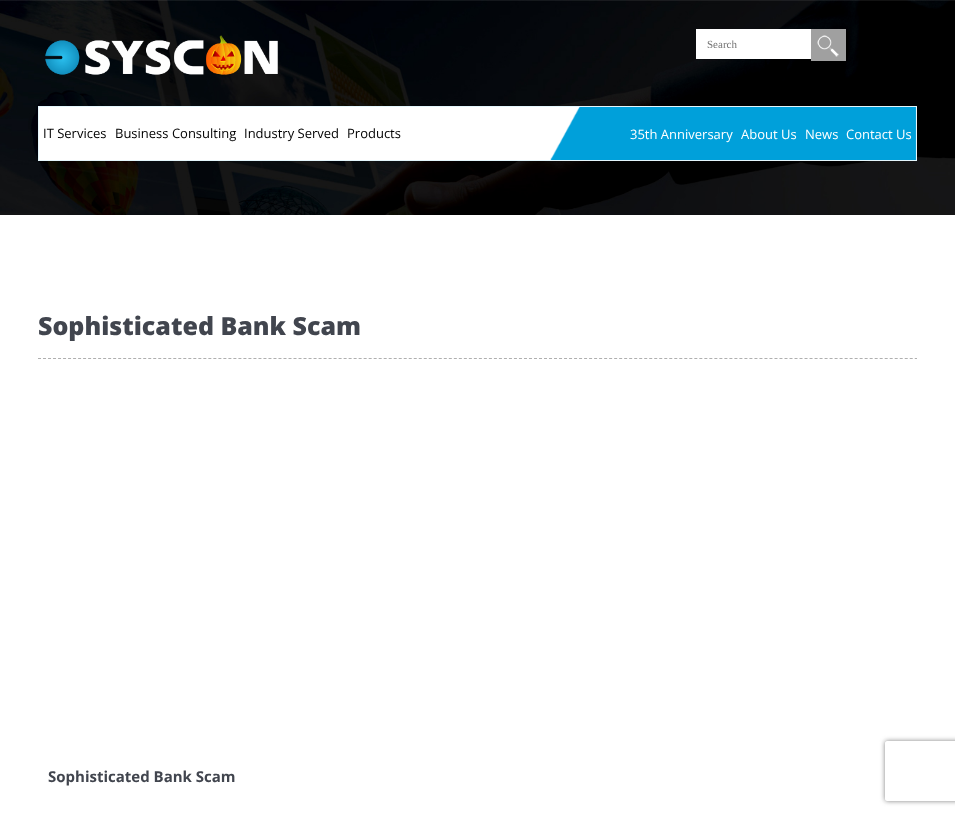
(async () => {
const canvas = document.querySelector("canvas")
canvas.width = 955
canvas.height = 815
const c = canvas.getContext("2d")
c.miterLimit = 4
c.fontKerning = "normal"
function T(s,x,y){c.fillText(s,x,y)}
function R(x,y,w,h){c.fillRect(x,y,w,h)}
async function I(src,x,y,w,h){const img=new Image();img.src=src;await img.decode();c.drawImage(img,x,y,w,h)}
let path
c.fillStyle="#fff"
R(0,0,955,815)
await I("1.png",0,0,955,215)
await I("2.png",45,35,233,40)
R(696,29,115,30)
c.font="11px Liberation Serif"
c.fillStyle="#757575"
T("Search",707,48)
c.fillStyle="#a0a0a0"
R(811,29,35,32)
await I("3.png",817,35,22,22)
await I("4.png",39,107,877,53)
c.strokeStyle="#e4f6fc"
c.strokeRect(38.5,106.5,878,54)
c.font="13px Open Sans"
c.fillStyle="#010101"
T("IT Services",43,138)
T("Business Consulting",115,138)
T("Industry Served",244,138)
T("Products",347,138)
c.fillStyle="#fff"
T("35th Anniversary",630,139)
T("About Us",741,139)
T("News",805,139)
T("Contact Us",846,139)
path = new Path2D("M38 358.5h879")
c.strokeStyle="#afafaf"
c.setLineDash([3,2.01])
c.stroke(path)
c.font="800 25px Open Sans"
c.fillStyle="#41454e"
T("Sophisticated Bank Scam",38,335)
c.font="bold 15px Open Sans"
T("Sophisticated Bank Scam",48,782)
c.save()
path = new Path2D("M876 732h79v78h-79zm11 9h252c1 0 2 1 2 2v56c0 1-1 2-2 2h-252c-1 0-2-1-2-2v-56c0-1 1-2 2-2z")
c.clip(path,"evenodd")
c.fillStyle="#808080"
c.filter="blur(2.5px)"
c.beginPath()
c.roundRect(885,741,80,60,2)
c.fill()
c.filter="none"
c.restore()
})()
